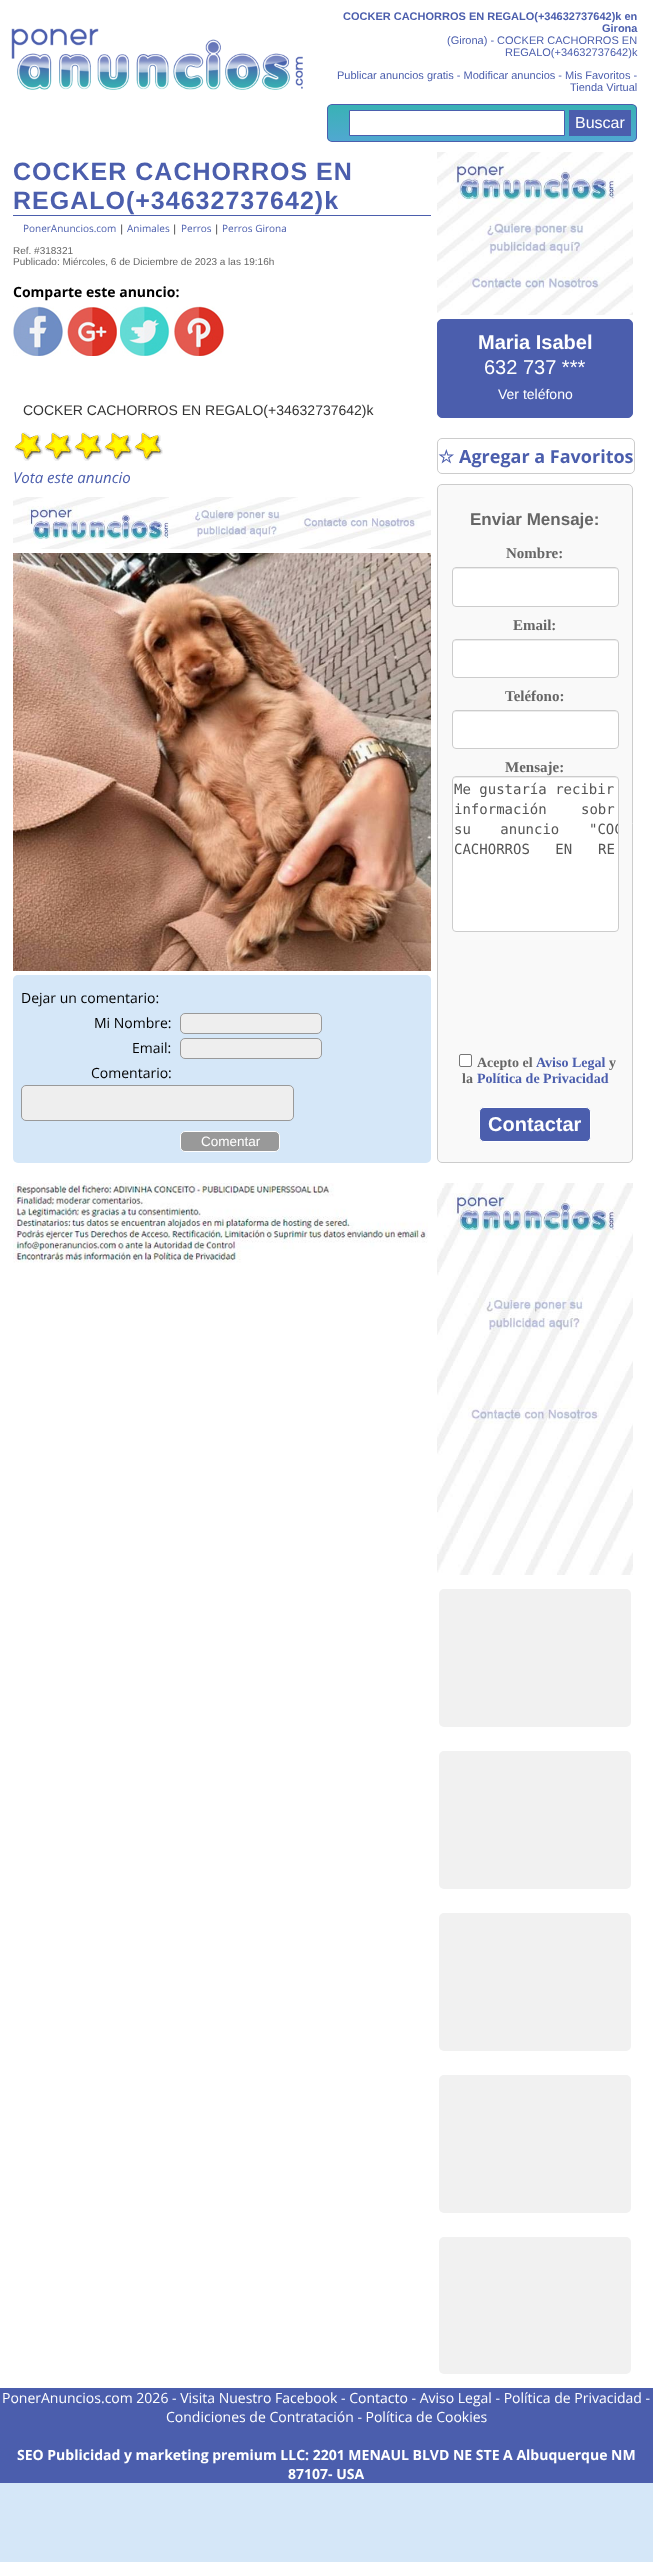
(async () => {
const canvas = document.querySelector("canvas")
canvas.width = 653
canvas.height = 2562
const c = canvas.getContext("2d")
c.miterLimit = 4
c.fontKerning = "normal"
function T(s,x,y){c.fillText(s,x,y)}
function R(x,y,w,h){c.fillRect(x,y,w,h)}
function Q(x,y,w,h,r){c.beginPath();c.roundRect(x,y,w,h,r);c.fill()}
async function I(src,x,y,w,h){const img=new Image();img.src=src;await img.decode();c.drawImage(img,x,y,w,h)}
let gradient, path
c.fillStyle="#d5e7f8"
R(0,0,653,2562)
c.fillStyle="#fff"
R(0,0,653,2388)
await I("1.png",11,28,292,62)
c.font="bold 11px Liberation Sans"
c.fillStyle="#4b5ead"
T("COCKER CACHORROS EN REGALO(+34632737642)k en",343,20)
T("Girona",602,32)
c.font="11px Liberation Sans"
T("(Girona) - COCKER CACHORROS EN",447,44)
T("REGALO(+34632737642)k",505,56)
T("Publicar anuncios gratis - Modificar anuncios - Mis Favoritos -",337,79)
T("Tienda Virtual",570,91)
c.save()
c.beginPath()
c.roundRect(327,104,310,38,5)
c.clip()
gradient = c.createLinearGradient(482,105,482,141)
gradient.addColorStop(0,"#39b2b5")
gradient.addColorStop(1,"#50a8d1")
c.fillStyle = gradient
R(327,105,310,36)
c.restore()
c.beginPath()
c.roundRect(327.5,104.5,309,37,4.5)
c.strokeStyle="#4b5ead"
c.stroke()
c.fillStyle="#fff"
c.beginPath()
c.rect(349.5,110.5,215,25)
c.fill()
c.stroke()
c.fillStyle="#4b5ead"
R(569,110,62,26)
c.font="16px Liberation Sans"
c.fillStyle="#fff"
T("Buscar",575,128)
c.fillStyle="#4b5ead"
R(13,215,418,1)
c.letterSpacing="1px"
c.font="bold 25px Liberation Sans"
T("COCKER CACHORROS EN",13,180)
T("REGALO(+34632737642)k",13,209)
c.letterSpacing="0px"
c.font="10px Open Sans"
T("PonerAnuncios.com",23,232)
c.fillStyle="#000"
T("|",119,232)
c.fillStyle="#4b5ead"
T("Animales",127,232)
c.fillStyle="#000"
T("|",172,232)
c.fillStyle="#4b5ead"
T("Perros",181,232)
c.fillStyle="#000"
T("|",214,232)
c.fillStyle="#4b5ead"
T("Perros Girona",222,232)
c.font="10px Liberation Sans"
c.fillStyle="#666"
T("Ref. #318321",13,254)
T("Publicado: Miércoles, 6 de Diciembre de 2023 a las 19:16h",13,265)
c.font="bold 14px Open Sans"
c.fillStyle="#000"
T("Comparte este anuncio:",13,297)
await I("2.png",13,306,50,50)
await I("3.png",67,306,50,50)
await I("4.png",120,306,50,50)
await I("5.png",174,306,50,50)
c.font="14px Liberation Sans"
c.fillStyle="#333"
T("COCKER CACHORROS EN REGALO(+34632737642)k",23,415)
await I("6.png",14,432,29,29)
await I("7.png",44,432,29,29)
await I("7.png",74,432,29,29)
await I("7.png",104,432,29,29)
await I("7.png",134,432,29,29)
c.font="italic 15px Open Sans"
c.fillStyle="#4b5ead"
T("Vota este anuncio",13,483)
await I("8.png",13,497,418,52)
await I("9.png",13,553,418,418)
c.fillStyle="#d5e7f8"
Q(13,975,418,188,5)
c.font="14px Open Sans"
c.fillStyle="#000"
T("Dejar un comentario:",21,1003)
T("Mi Nombre:",94,1028)
c.fillStyle="#eee"
c.beginPath()
c.roundRect(180.5,1013.5,141,20,4.5)
c.fill()
c.strokeStyle="#999"
c.stroke()
c.fillStyle="#000"
T("Email:",132,1053)
c.fillStyle="#eee"
c.beginPath()
c.roundRect(180.5,1038.5,141,20,4.5)
c.fill()
c.stroke()
c.fillStyle="#000"
T("Comentario:",91,1078)
c.fillStyle="#eee"
c.beginPath()
c.roundRect(21.5,1085.5,272,35,4.5)
c.fill()
c.stroke()
c.fillStyle="#999"
c.beginPath()
c.roundRect(180.5,1131.5,99,20,4.5)
c.fill()
c.strokeStyle="#fff"
c.stroke()
c.font="13.5px Liberation Sans"
c.fillStyle="#fff"
T("Comentar",201,1146)
await I("10.png",13,1183,415,80)
await I("11.png",437,152,196,163)
c.fillStyle="#4b5ead"
c.beginPath()
c.roundRect(437.5,319.5,195,98,4.5)
c.fill()
c.strokeStyle="#4b5ead"
c.stroke()
c.font="bold 20px Liberation Sans"
c.fillStyle="#fff"
T("Maria Isabel",478,349)
c.font="20px Liberation Sans"
T("632 737 ***",484,374)
c.font="14px Liberation Sans"
T("Ver teléfono",498,399)
c.beginPath()
c.roundRect(437.5,438.5,197,35,4.5)
c.strokeStyle="#ccc"
c.stroke()
c.font="bold 18px DejaVu Sans"
c.fillStyle="#4b5ead"
T("☆",438,463)
c.font="bold 18px Open Sans"
T("Agregar a Favoritos",459,463)
c.fillStyle="#f9f9f9"
c.beginPath()
c.roundRect(437.5,484.5,195,678,4.5)
c.fill()
c.stroke()
c.font="bold 17px Liberation Sans"
c.fillStyle="#666"
T("Enviar Mensaje:",470,525)
c.font="bold 15px Liberation Serif"
T("Nombre:",506,558)
c.fillStyle="#fff"
Q(452,567,167,40,4)
c.fillStyle="#ececec"
path = new Path2D("M456 569h159c2 0 3 1 3 3c0-2-1-4-3-4h-159c-2 0-3 2-3 4c0-2 1-3 3-3z")
c.fill(path)
c.beginPath()
c.roundRect(452.5,567.5,166,39,3.5)
c.stroke()
c.fillStyle="#666"
T("Email:",513,630)
c.fillStyle="#fff"
Q(452,639,167,39,4)
c.fillStyle="#ececec"
path = new Path2D("M456 641h159c2 0 3 1 3 3c0-2-1-4-3-4h-159c-2 0-3 2-3 4c0-2 1-3 3-3z")
c.fill(path)
c.beginPath()
c.roundRect(452.5,639.5,166,38,3.5)
c.stroke()
c.fillStyle="#666"
T("Teléfono:",505,701)
c.fillStyle="#fff"
Q(452,710,167,39,4)
c.fillStyle="#ececec"
path = new Path2D("M456 712h159c2 0 3 1 3 3c0-2-1-4-3-4h-159c-2 0-3 2-3 4c0-2 1-3 3-3z")
c.fill(path)
c.beginPath()
c.roundRect(452.5,710.5,166,38,3.5)
c.stroke()
c.fillStyle="#666"
T("Mensaje:",505,772)
c.fillStyle="#fff"
Q(452,776,167,156,4)
c.fillStyle="#ececec"
path = new Path2D("M456 778h159c2 0 3 1 3 3c0-2-1-4-3-4h-159c-2 0-3 2-3 4c0-2 1-3 3-3z")
c.fill(path)
c.beginPath()
c.roundRect(452.5,776.5,166,155,3.5)
c.stroke()
c.font="14px DejaVu Sans Mono"
c.fillStyle="#555"
T("Me gustaría recibir",454,794)
T("información",454,814)
T("sobr",581,814)
c.wordSpacing="21px"
T("su anuncio",454,834)
c.save()
c.beginPath()
c.roundRect(453,777,165,154,3)
c.clip()
c.wordSpacing="0px"
T("\"COC",589,834)
c.restore()
c.wordSpacing="17px"
T("CACHORROS EN",454,854)
c.wordSpacing="0px"
T("RE",598,854)
c.fillStyle="#fff"
c.beginPath()
c.roundRect(459.5,1054.5,12,12,1.5)
c.fill()
c.strokeStyle="#767676"
c.stroke()
c.font="bold 14px Liberation Serif"
c.fillStyle="#666"
T("Acepto el",477,1067)
c.fillStyle="#4b5ead"
T("Aviso Legal",536,1067)
c.fillStyle="#666"
T("y",609,1067)
T("la",462,1083)
c.fillStyle="#4b5ead"
T("Política de Privacidad",477,1083)
c.beginPath()
c.roundRect(479.5,1107.5,111,34,4.5)
c.fill()
c.strokeStyle="#fff"
c.stroke()
c.font="bold 20px Liberation Sans"
c.fillStyle="#fff"
T("Contactar",488,1131)
await I("12.png",437,1183,196,392)
c.fillStyle="#f1f1f1"
Q(439,1589,192,138,5)
Q(439,1751,192,138,5)
Q(439,1913,192,138,5)
Q(439,2075,192,138,5)
Q(439,2237,192,137,5)
c.fillStyle="#4b5ead"
R(0,2388,653,95)
c.font="14px Open Sans"
c.fillStyle="#fff"
T("PonerAnuncios.com 2026 - Visita Nuestro Facebook - Contacto - Aviso Legal - Política de Privacidad -",2,2403)
T("Condiciones de Contratación - Política de Cookies",166,2422)
c.font="bold 14px Open Sans"
T("SEO Publicidad y marketing premium LLC: 2201 MENAUL BLVD NE STE A Albuquerque NM",17,2460)
T("87107- USA",288,2479)
})()
